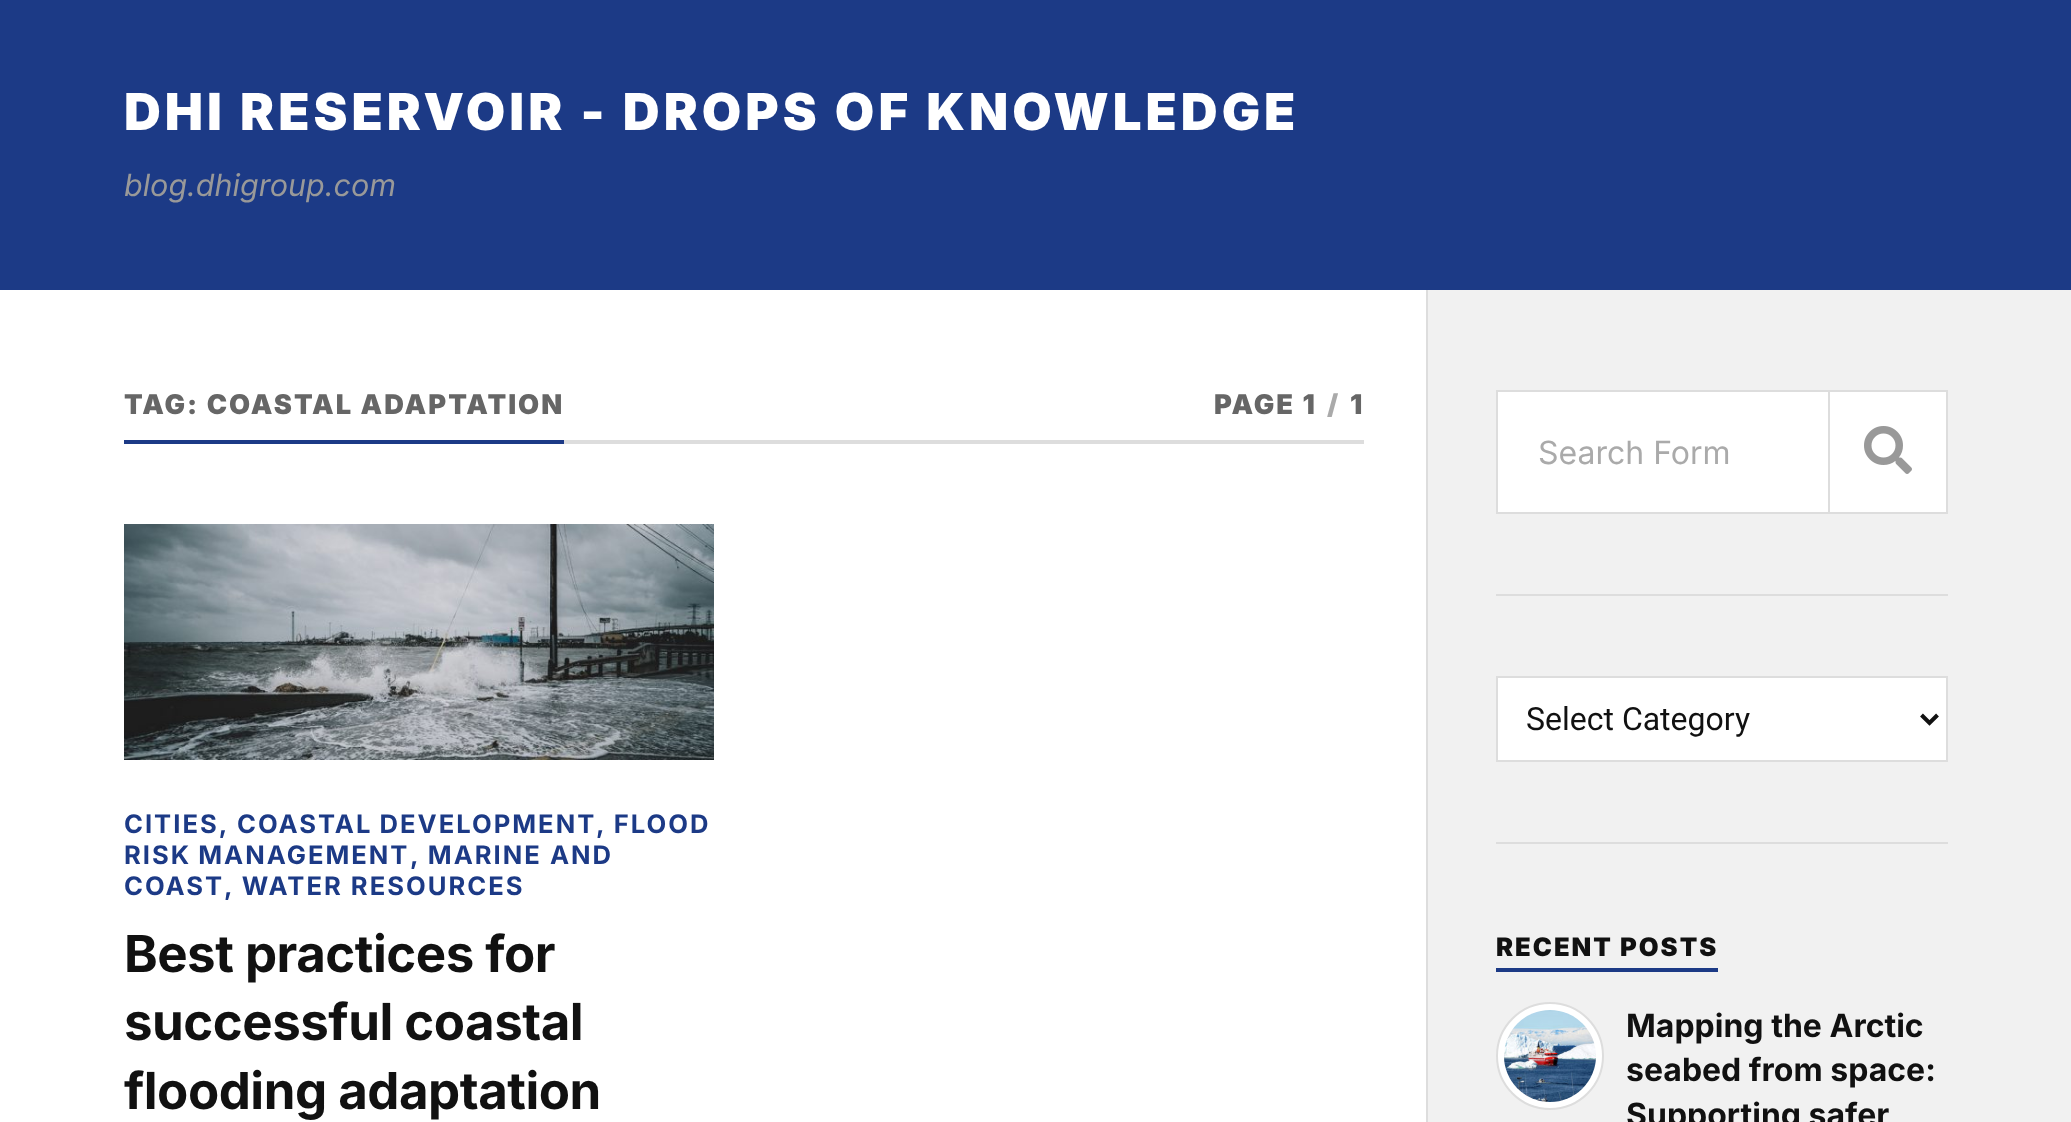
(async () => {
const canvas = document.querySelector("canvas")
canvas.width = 2071
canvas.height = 1122
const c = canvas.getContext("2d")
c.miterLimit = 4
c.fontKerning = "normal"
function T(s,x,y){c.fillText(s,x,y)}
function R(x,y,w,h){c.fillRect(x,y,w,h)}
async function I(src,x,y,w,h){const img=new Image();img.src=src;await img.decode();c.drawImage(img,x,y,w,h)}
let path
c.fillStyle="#f1f1f1"
R(0,0,2071,1122)
c.fillStyle="#1c3a86"
R(0,0,2071,290)
c.letterSpacing="4px"
c.font="900 51px Inter"
c.fillStyle="#fff"
T("DHI RESERVOIR - DROPS OF KNOWLEDGE",124,130)
c.letterSpacing="0px"
c.font="italic 30.5px Inter"
c.fillStyle="#999"
T("blog.dhigroup.com",124,196)
c.fillStyle="#fff"
R(0,290,1426,832)
c.fillStyle="#ddd"
R(564,440,800,4)
c.fillStyle="#1c3a86"
R(124,440,440,4)
c.letterSpacing="2px"
c.font="900 27.25px Inter"
c.fillStyle="#666"
T("TAG: COASTAL ADAPTATION",124,414)
T("PAGE 1",1214,414)
c.fillStyle="#aaa"
T("/",1327,414)
c.fillStyle="#666"
T("1",1350,414)
await I("1.png",124,524,590,236)
c.font="bold 25.6px Inter"
c.fillStyle="#1c3a86"
T("CITIES,",124,833)
c.wordSpacing="-1px"
T("COASTAL DEVELOPMENT",237,833)
c.wordSpacing="0px"
T(", FLOOD",596,833)
c.wordSpacing="-1px"
T("RISK MANAGEMENT",124,864)
c.wordSpacing="0px"
T(", MARINE AND",410,864)
T("COAST",124,895)
T(", WATER RESOURCES",224,895)
c.letterSpacing="-0.5px"
c.font="bold 51px Inter"
c.fillStyle="#111"
T("Best practices for",124,972)
T("successful coastal",124,1040)
T("flooding adaptation",124,1109)
c.fillStyle="#ddd"
R(1426,290,2,832)
c.fillStyle="#fff"
c.beginPath()
c.rect(1497,391,450,122)
c.fill()
c.strokeStyle="#ddd"
c.lineWidth=2
c.stroke()
c.letterSpacing="0px"
c.font="32px Inter"
c.fillStyle="#aaa"
T("Search Form",1538,464)
c.fillStyle="#ddd"
R(1828,392,2,120)
await I("2.png",1864,426,48,48)
R(1496,594,452,2)
c.fillStyle="#fff"
c.beginPath()
c.rect(1497,677,450,84)
c.fill()
c.stroke()
path = new Path2D("M1921.5 715l8 8l8-8")
c.strokeStyle="#111"
c.lineWidth=4
c.stroke(path)
c.font="32px Roboto"
c.fillStyle="#111"
T("Select Category",1526,730)
c.fillStyle="#ddd"
R(1496,842,452,2)
c.fillStyle="#1c3a86"
R(1496,968,222,4)
c.letterSpacing="2px"
c.font="900 25.6px Inter"
c.fillStyle="#111"
T("RECENT POSTS",1496,956)
c.fillStyle="#fff"
c.beginPath()
c.arc(1550,1056,53,0,7)
c.fill()
c.strokeStyle="#ddd"
c.lineWidth=2
c.stroke()
await I("3.png",1504,1010,92,92)
c.letterSpacing="0px"
c.font="bold 32px Inter"
c.fillStyle="#111"
T("Mapping the Arctic",1626,1037)
T("seabed from space:",1626,1081)
T("Supporting safer",1626,1126)
})()
